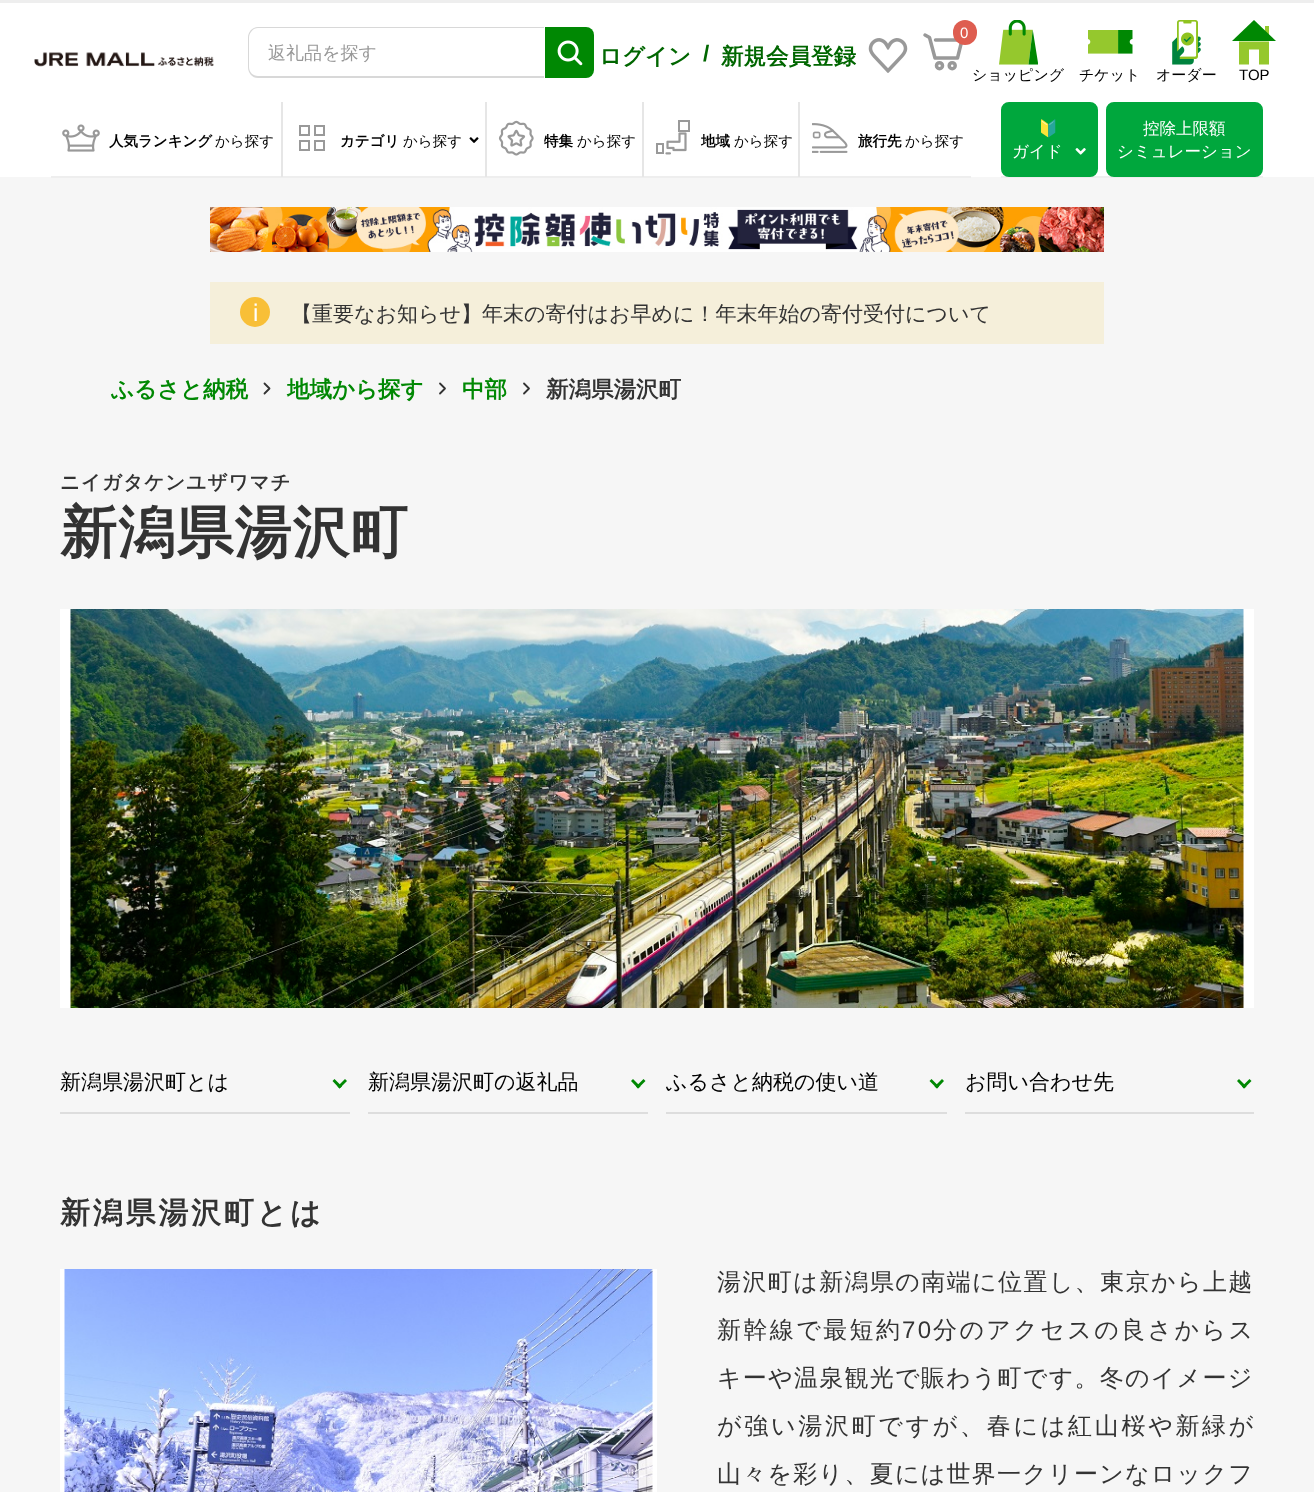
(async () => {
const canvas = document.querySelector("canvas")
canvas.width = 1314
canvas.height = 1492
const c = canvas.getContext("2d")
c.miterLimit = 4
c.fontKerning = "normal"
function T(s,x,y){c.fillText(s,x,y)}
function R(x,y,w,h){c.fillRect(x,y,w,h)}
function Q(x,y,w,h,r){c.beginPath();c.roundRect(x,y,w,h,r);c.fill()}
async function I(src,x,y,w,h){const img=new Image();img.src=src;await img.decode();c.drawImage(img,x,y,w,h)}
let path
c.fillStyle="#f6f6f6"
R(0,0,1314,1492)
c.fillStyle="#fff"
R(0,3,1314,174)
c.fillStyle="#eee"
R(0,0,1314,3)
await I("1.png",34,52,180,15)
c.fillStyle="#d8d8d8"
path = new Path2D("M258 27h286v51h-286c-6 0-10-5-10-11v-29c0-6 4-11 10-11zm0 1h286v48h-286c-5 0-9-4-9-9v-29c0-5 4-10 9-10z")
c.fill(path,"evenodd")
c.font="500 18px WenQuanYi Zen Hei"
c.fillStyle="#999"
T("返礼品を探す",268,59)
c.fillStyle="#008803"
c.beginPath()
c.roundRect(545,27,49,51,[0,8,8,0])
c.fill()
await I("2.png",557,40,26,26)
path = new Path2D("M935.5 40h26.5l-4.5 18h-22.5l-5.5-20.5l-4.5-2.5")
c.strokeStyle="#999"
c.lineWidth=3.5
c.lineCap="round"
c.lineJoin="round"
c.stroke(path)
c.fillStyle="#de5d50"
Q(953,20,24,25,12)
c.font="15px Liberation Sans"
c.fillStyle="#fff"
T("0",960,38)
c.beginPath()
c.arc(939.5,65.7,3,0,7)
c.stroke()
c.beginPath()
c.arc(952.2,65.7,3,0,7)
c.stroke()
c.font="bold 22.5px WenQuanYi Zen Hei"
c.fillStyle="#060"
T("ログイン",599,64)
c.font="bold 22.5px Liberation Sans"
T("/",703,61)
c.font="bold 22.5px WenQuanYi Zen Hei"
T("新規会員登録",721,64)
await I("3.png",868,38,40,35)
await I("4.png",999,20,39,45)
c.font="500 15px WenQuanYi Zen Hei"
c.fillStyle="#000"
T("ショッピング",972,80)
await I("5.png",1088,30,45,24)
T("チケット",1079,80)
await I("6.png",1172,20,29,45)
T("オーダー",1156,80)
c.fillStyle="#95c82d"
R(1265,26,4,10)
c.fillStyle="#008803"
path = new Path2D("M1254 20l-22 21h44z")
c.fill(path)
c.fillStyle="#95c82d"
path = new Path2D("M1239 41.5v23h10v-15h10v15h10v-23z")
c.fill(path)
c.font="15px Liberation Sans"
c.fillStyle="#000"
T("TOP",1239,80)
c.fillStyle="#eee"
R(51,176,920,2)
c.fillStyle="#e6e6e6"
R(281,102,2,75)
await I("7.png",62,124,38,28)
c.font="bold 14.5px WenQuanYi Zen Hei"
c.fillStyle="#000"
T("人気ランキング",109,146)
c.font="500 14.5px WenQuanYi Zen Hei"
T("から探す",215,146)
c.fillStyle="#e6e6e6"
R(485,102,2,75)
c.lineWidth=2
c.lineJoin="miter"
c.strokeRect(300,126,9,9)
c.strokeRect(315,126,9,9)
c.strokeRect(300,141,9,9)
c.strokeRect(315,141,9,9)
c.font="bold 14.5px WenQuanYi Zen Hei"
c.fillStyle="#000"
T("カテゴリ",340,146)
c.font="500 14.5px WenQuanYi Zen Hei"
T("から探す",403,146)
await I("8.png",469,137,10,6)
c.fillStyle="#e6e6e6"
R(642,102,2,75)
await I("9.png",498,120,36,36)
c.font="bold 14.5px WenQuanYi Zen Hei"
c.fillStyle="#000"
T("特集",544,146)
c.font="500 14.5px WenQuanYi Zen Hei"
T("から探す",577,146)
c.fillStyle="#e6e6e6"
R(798,102,2,75)
await I("10.png",656,120,34,35)
c.font="bold 14.5px WenQuanYi Zen Hei"
c.fillStyle="#000"
T("地域",701,146)
c.font="500 14.5px WenQuanYi Zen Hei"
T("から探す",734,146)
await I("11.png",812,123,36,30)
c.font="bold 14.5px WenQuanYi Zen Hei"
T("旅行先",858,146)
c.font="500 14.5px WenQuanYi Zen Hei"
T("から探す",905,146)
c.fillStyle="#eee"
R(1001,176,262,2)
c.fillStyle="#00a73d"
c.beginPath()
c.roundRect(1002.5,103.5,94,72,6.5)
c.fill()
c.strokeStyle="#00a73d"
c.lineWidth=3
c.stroke()
c.font="16.5px Noto Color Emoji"
c.fillStyle="#fff"
T("🔰",1038,134)
c.font="500 16.5px WenQuanYi Zen Hei"
T("ガイド",1012,157)
await I("12.png",1075,148,11,7)
c.fillStyle="#00a73d"
c.beginPath()
c.roundRect(1107.5,103.5,154,72,6.5)
c.fill()
c.stroke()
c.fillStyle="#fff"
T("控除上限額",1143,134)
T("シミュレーション",1117,157)
await I("13.png",210,207,894,45)
c.fillStyle="#f5efda"
R(210,282,894,62)
c.fillStyle="#f8bf37"
c.beginPath()
c.arc(255,312,15,0,7)
c.fill()
c.font="24px Liberation Sans"
c.fillStyle="#fff"
T("i",253,321)
c.font="500 21px WenQuanYi Zen Hei"
c.fillStyle="#333"
T("【重要なお知らせ】年末の寄付はお早めに！年末年始の寄付受付について",291,321)
c.font="bold 22.5px WenQuanYi Zen Hei"
c.fillStyle="#008803"
T("ふるさと納税",111,397)
path = new Path2D("M264.5 393.5l5-5l-5-5")
c.strokeStyle="#333"
c.lineWidth=1.8
c.lineJoin="round"
c.stroke(path)
T("地域から探す",287,397)
path = new Path2D("M440 393.5l5-5l-5-5")
c.stroke(path)
T("中部",462,397)
path = new Path2D("M524 393.5l5-5l-5-5")
c.stroke(path)
c.fillStyle="#333"
T("新潟県湯沢町",546,397)
c.letterSpacing="1.1px"
c.font="bold 19.5px WenQuanYi Zen Hei"
T("ニイガタケンユザワマチ",60,489)
c.font="bold 57px WenQuanYi Zen Hei"
T("新潟県湯沢町",60,552)
c.fillStyle="#fff"
R(60,609,1194,399)
await I("14.png",70,609,1174,399)
c.fillStyle="#ddd"
R(60,1112,290,2)
c.letterSpacing="0px"
c.font="500 21px WenQuanYi Zen Hei"
c.fillStyle="#000"
T("新潟県湯沢町とは",60,1089)
c.fillStyle="#008803"
path = new Path2D("M345 1079l2 2l-7.5 7.5l-2-2z")
c.fill(path)
path = new Path2D("M334.5 1079l7.5 7.5l-2.5 2l-7-7.5z")
c.fill(path)
c.fillStyle="#ddd"
R(368,1112,280,2)
c.fillStyle="#000"
T("新潟県湯沢町の返礼品",368,1089)
c.fillStyle="#008803"
path = new Path2D("M643.5 1079l2 2l-7.5 7.5l-2-2z")
c.fill(path)
path = new Path2D("M633 1079l7.5 7.5l-2.5 2l-7-7.5z")
c.fill(path)
c.fillStyle="#ddd"
R(666,1112,281,2)
c.fillStyle="#000"
T("ふるさと納税の使い道",666,1089)
c.fillStyle="#008803"
path = new Path2D("M942 1079l2 2l-7 7.5l-2.5-2z")
c.fill(path)
path = new Path2D("M931.5 1079l7.5 7.5l-2 2l-7.5-7.5z")
c.fill(path)
c.fillStyle="#ddd"
R(965,1112,289,2)
c.fillStyle="#000"
T("お問い合わせ先",965,1089)
c.fillStyle="#008803"
path = new Path2D("M1249.5 1079l2 2l-7.5 7.5l-2-2z")
c.fill(path)
path = new Path2D("M1239 1079l7.5 7.5l-2.5 2l-7-7.5z")
c.fill(path)
c.letterSpacing="2.75px"
c.font="bold 30px WenQuanYi Zen Hei"
c.fillStyle="#333"
T("新潟県湯沢町とは",60,1223)
c.fillStyle="#fff"
R(60,1269,597,223)
await I("15.png",64,1269,589,223)
c.letterSpacing="1.4px"
c.font="500 24px WenQuanYi Zen Hei"
c.fillStyle="#333"
T("湯沢町は新潟県の南端に位置し、東京から上越",717,1290)
c.letterSpacing="2.4px"
T("新幹線で最短約",717,1338)
c.font="24px Liberation Sans"
T("70",902,1338)
c.font="500 24px WenQuanYi Zen Hei"
T("分のアクセスの良さからス",933,1338)
c.letterSpacing="1.25px"
T("キーや温泉観光で賑わう町です。冬のイメージ",717,1386)
c.letterSpacing="2.7px"
T("が強い湯沢町ですが、春には紅山桜や新緑が",717,1434)
c.letterSpacing="1.25px"
T("山々を彩り、夏には世界一クリーンなロックフ",717,1482)
})()
